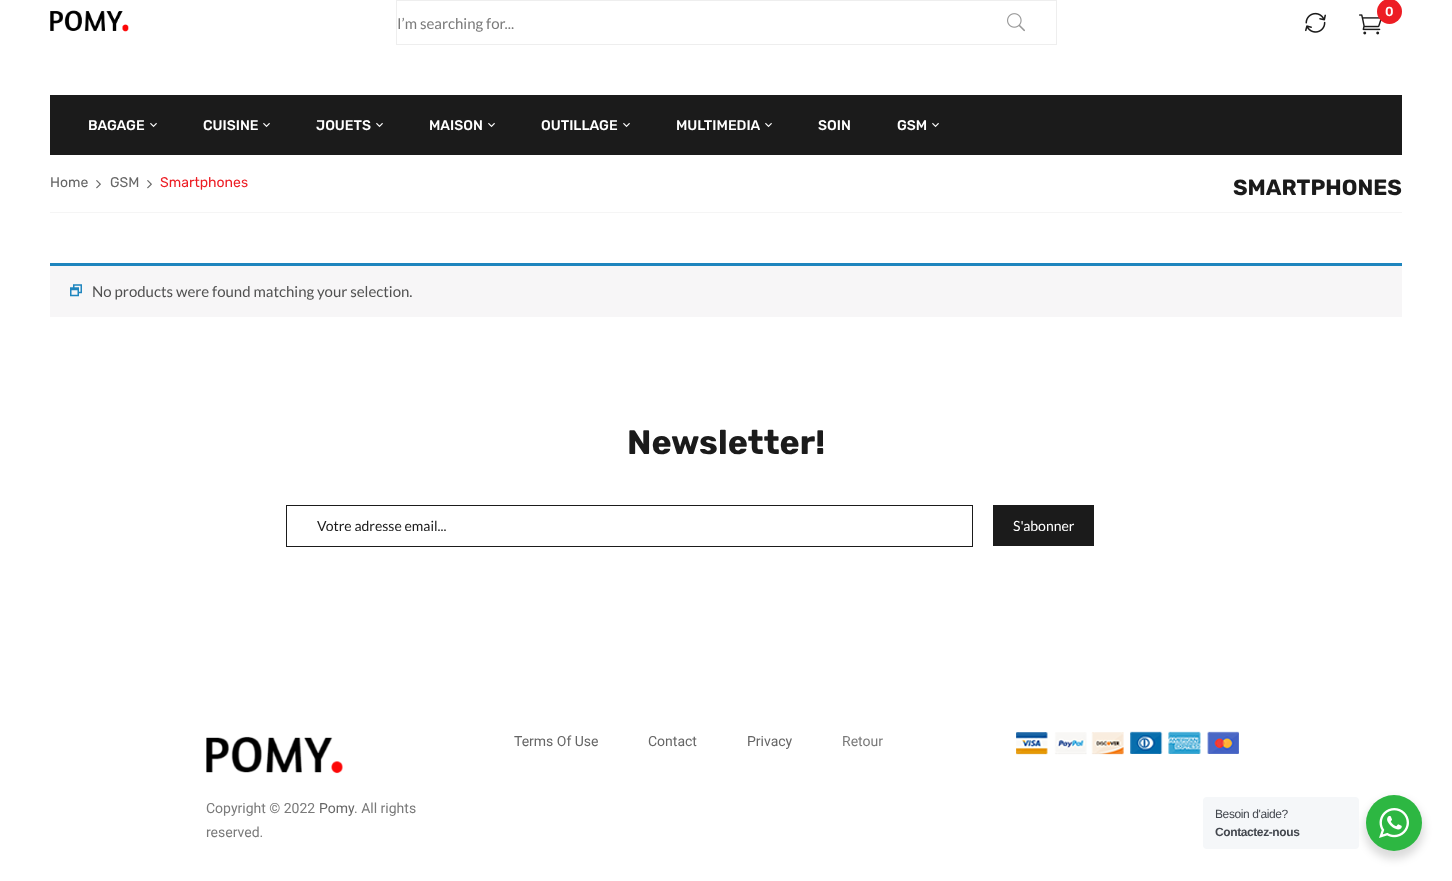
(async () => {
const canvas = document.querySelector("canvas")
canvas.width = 1452
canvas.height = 881
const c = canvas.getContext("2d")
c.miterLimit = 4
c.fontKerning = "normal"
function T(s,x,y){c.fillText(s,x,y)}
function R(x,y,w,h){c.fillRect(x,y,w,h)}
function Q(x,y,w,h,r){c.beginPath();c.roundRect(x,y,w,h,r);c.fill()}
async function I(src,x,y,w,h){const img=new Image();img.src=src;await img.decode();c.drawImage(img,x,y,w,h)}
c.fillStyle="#fff"
R(0,0,1452,881)
await I("1.png",50,10,79,22)
c.strokeStyle="#eee"
c.strokeRect(396.5,.5,660,44)
c.font="15px Lato"
c.fillStyle="#7a7a7a"
T("I’m searching for...",397,29)
await I("2.png",1007,13,18,19)
await I("3.png",1305,12,21,21)
await I("4.png",1359,14,23,21)
c.fillStyle="#ed1d24"
c.beginPath()
c.arc(1389.5,11.5,12.5,0,7)
c.fill()
c.font="500 13px Rubik"
c.fillStyle="#fff"
T("0",1385,16)
c.fillStyle="#1b1b1b"
R(50,95,1352,60)
c.font="500 14px Rubik"
c.fillStyle="#fff"
T("BAGAGE",88,130)
await I("5.png",150,122,7,6)
T("CUISINE",203,130)
await I("5.png",263,122,7,6)
T("JOUETS",316,130)
await I("5.png",376,122,7,6)
T("MAISON",429,130)
await I("5.png",488,122,7,6)
T("OUTILLAGE",541,130)
await I("5.png",623,122,7,6)
T("MULTIMEDIA",676,130)
await I("5.png",765,122,7,6)
T("SOIN",818,130)
T("GSM",897,130)
await I("5.png",932,122,7,6)
c.fillStyle="#f5f5f5"
R(50,212,1352,1)
c.font="14px Rubik"
c.fillStyle="#666"
T("Home",50,187)
await I("6.png",96,180,5,9)
T("GSM",110,187)
await I("6.png",147,180,5,9)
c.fillStyle="#ed1d24"
T("Smartphones",160,187)
c.font="bold 22px Rubik"
c.fillStyle="#1b1b1b"
T("SMARTPHONES",1233,195)
c.fillStyle="#f7f6f7"
R(50,266,1352,51)
c.fillStyle="#1e85be"
R(50,263,1352,3)
await I("7.png",70,284,12,13)
c.font="15px Lato"
c.fillStyle="#515151"
T("No products were found matching your selection.",92,297)
c.font="bold 34px Rubik"
c.fillStyle="#1b1b1b"
T("Newsletter!",627,454)
c.strokeStyle="#1b1b1b"
c.strokeRect(286.5,505.5,686,41)
c.font="14px Lato"
T("Votre adresse email...",317,531)
R(993,505,101,41)
c.fillStyle="#fff"
T("S'abonner",1013,531)
c.font="14px Roboto"
c.fillStyle="#666"
T("Terms Of Use",514,746)
T("Contact",648,746)
T("Privacy",747,746)
c.fillStyle="#7a7a7a"
T("Retour",842,746)
await I("8.png",1016,731,223,24)
await I("9.png",206,736,137,38)
T("Copyright © 2022",206,813)
c.fillStyle="#666"
T("Pomy",319,813)
c.fillStyle="#7a7a7a"
T(". All rights",354,813)
T("reserved.",206,837)
c.fillStyle="#00000024"
c.filter="blur(4px)"
c.beginPath()
c.roundRect(1364,799,60,60,30)
c.fill()
c.filter="none"
c.fillStyle="#f5f7f9"
Q(1203,797,156,52,4)
c.letterSpacing="-0.4px"
c.font="12px Liberation Sans"
c.fillStyle="#43474e"
T("Besoin d'aide?",1215,818)
c.font="bold 12px Liberation Sans"
T("Contactez-nous",1215,836)
c.fillStyle="#2db742"
c.beginPath()
c.arc(1394,823,28,0,7)
c.fill()
await I("10.png",1379,808,30,30)
})()
